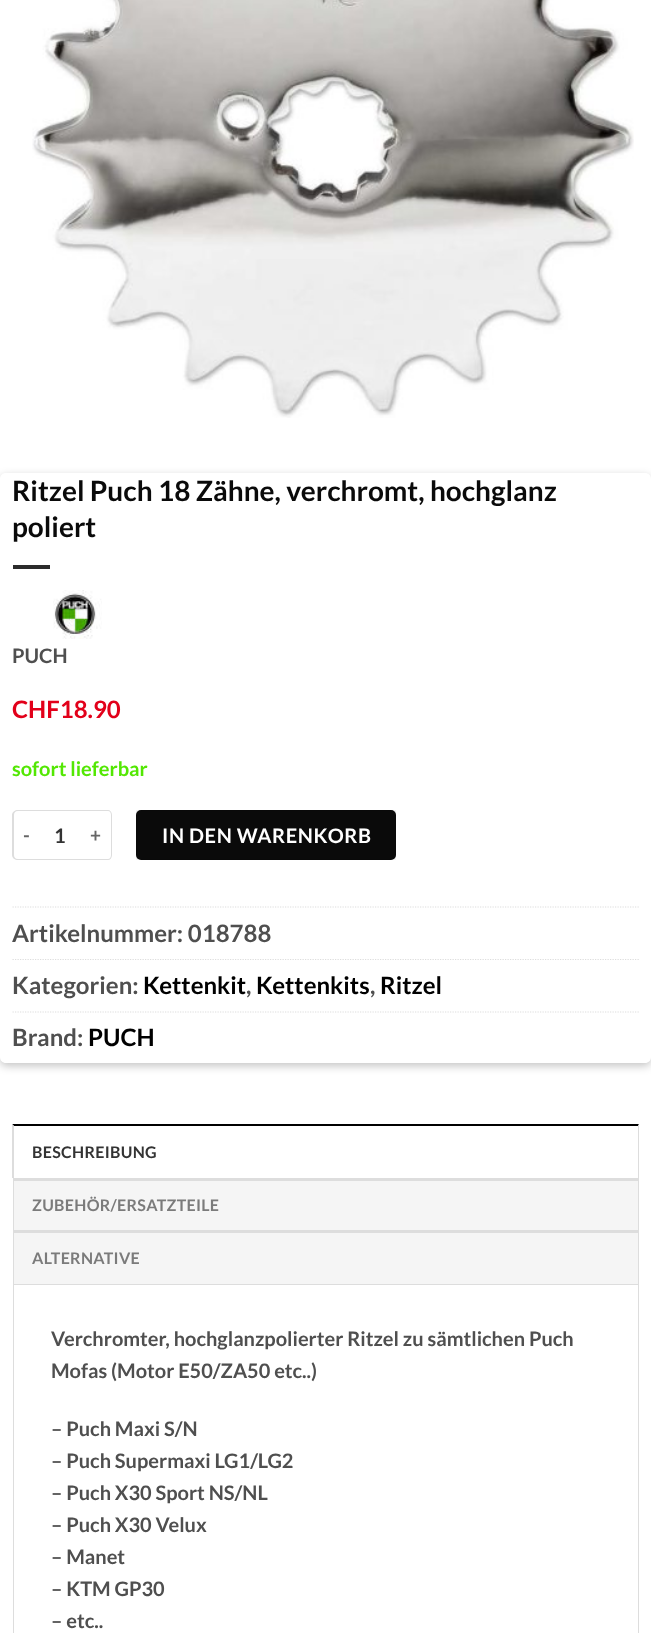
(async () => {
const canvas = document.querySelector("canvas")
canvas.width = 651
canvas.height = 1633
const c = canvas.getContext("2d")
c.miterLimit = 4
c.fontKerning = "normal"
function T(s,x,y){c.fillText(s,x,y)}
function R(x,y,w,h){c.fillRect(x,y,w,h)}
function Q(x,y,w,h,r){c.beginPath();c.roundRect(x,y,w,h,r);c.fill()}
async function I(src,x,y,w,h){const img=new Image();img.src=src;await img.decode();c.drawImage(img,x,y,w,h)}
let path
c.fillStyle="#fff"
R(0,0,651,1633)
await I("1.png",32,0,602,418)
c.save()
path = new Path2D("M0 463h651v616h-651zm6 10h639c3.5 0 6 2.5 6 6v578c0 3.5-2.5 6-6 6h-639c-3.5 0-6-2.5-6-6v-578c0-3.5 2.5-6 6-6z")
c.clip(path,"evenodd")
c.fillStyle="#0000003b"
c.filter="blur(4px)"
c.beginPath()
c.roundRect(0,476,651,590,6)
c.fill()
c.filter="none"
c.restore()
c.font="bold 28px Lato"
c.fillStyle="#0a0a0a"
T("Ritzel Puch 18 Zähne, verchromt, hochglanz",12,501)
T("poliert",12,537)
c.fillStyle="#2b2b2b"
R(13,565,37,4)
await I("2.png",53,590,49,49)
c.font="bold 20px Lato"
c.fillStyle="#4f4f4f"
T("PUCH",12,663)
c.font="bold 24px Lato"
c.fillStyle="#e2001a"
T("CHF18.90",12,718)
c.font="bold 20px Lato"
c.fillStyle="#53e703"
T("sofort lieferbar",12,776)
c.fillStyle="#ddd"
path = new Path2D("M18 810h22v50h-22c-3 0-6-2-6-5v-40c0-3 3-5 6-5zm0 1h22v48h-22c-3 0-4-2-4-4v-40c0-2 1-4 4-4z")
c.fill(path,"evenodd")
c.letterSpacing="1px"
c.font="bold 19px Lato"
c.fillStyle="#666"
T("-",23,842)
c.fillStyle="#ddd"
R(40,810,40,1)
R(40,859,40,1)
c.letterSpacing="0px"
c.font="bold 20px Lato"
c.fillStyle="#333"
T("1",54,843)
c.fillStyle="#ddd"
path = new Path2D("M80 810h28c2 0 4 2 4 5v40c0 3-2 5-4 5h-28zm0 1h28c2 0 3 2 3 4v40c0 2-1 4-3 4h-28z")
c.fill(path,"evenodd")
c.letterSpacing="1px"
c.font="bold 19px Lato"
c.fillStyle="#666"
T("+",90,842)
c.fillStyle="#0a0a0a"
Q(136,810,260,50,5)
c.strokeStyle="#0000000d"
c.strokeRect(136.5,810.5,259,49)
c.letterSpacing="0.6px"
c.font="bold 20px Lato"
c.fillStyle="#fff"
T("IN DEN WARENKORB",162,843)
path = new Path2D("M12.5 907h626.5")
c.strokeStyle="#ddd"
c.lineWidth=1.2
c.setLineDash([1.25,1.25])
c.stroke(path)
c.letterSpacing="0px"
c.font="bold 24px Lato"
c.fillStyle="#4f4f4f"
T("Artikelnummer: 018788",12,942)
path = new Path2D("M12.5 959.5h626.5")
c.stroke(path)
T("Kategorien:",12,994)
c.fillStyle="#000"
T("Kettenkit",143,994)
c.fillStyle="#4f4f4f"
T(",",246,994)
c.fillStyle="#000"
T("Kettenkits",256,994)
c.fillStyle="#4f4f4f"
T(",",370,994)
c.fillStyle="#000"
T("Ritzel",380,994)
path = new Path2D("M12.5 1012h626.5")
c.stroke(path)
c.fillStyle="#4f4f4f"
T("Brand:",12,1046)
c.fillStyle="#000"
T("PUCH",88,1046)
path = new Path2D("M12 1124h627l-1 2h-624z")
c.fill(path)
c.fillStyle="#ddd"
path = new Path2D("M639 1124v54h-1v-52z")
c.fill(path)
path = new Path2D("M12 1178v-54l2 2v52z")
c.fill(path)
c.letterSpacing="0.3px"
c.font="bold 16px Lato"
c.fillStyle="#333"
T("BESCHREIBUNG",32,1158)
c.fillStyle="#f5f5f5"
R(14,1181,624,49)
c.fillStyle="#ddd"
R(13,1178,626,3)
R(638,1178,1,52)
R(13,1178,1,52)
c.fillStyle="#7b7b7b"
T("ZUBEHÖR/ERSATZTEILE",32,1211)
c.fillStyle="#f5f5f5"
R(14,1233,624,51)
c.fillStyle="#ddd"
R(13,1230,626,3)
R(638,1230,1,54)
R(13,1230,1,54)
c.fillStyle="#7b7b7b"
T("ALTERNATIVE",32,1264)
c.lineWidth=1
c.setLineDash([])
c.strokeRect(13.5,1284.5,625,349)
c.letterSpacing="0px"
c.font="bold 20px Lato"
c.fillStyle="#4f4f4f"
T("Verchromter, hochglanzpolierter Ritzel zu sämtlichen Puch",51,1346)
T("Mofas (Motor E50/ZA50 etc..)",51,1378)
T("– Puch Maxi S/N",51,1436)
T("– Puch Supermaxi LG1/LG2",51,1468)
T("– Puch X30 Sport NS/NL",51,1500)
T("– Puch X30 Velux",51,1532)
T("– Manet",51,1564)
T("– KTM GP30",51,1596)
T("– etc..",51,1628)
})()
